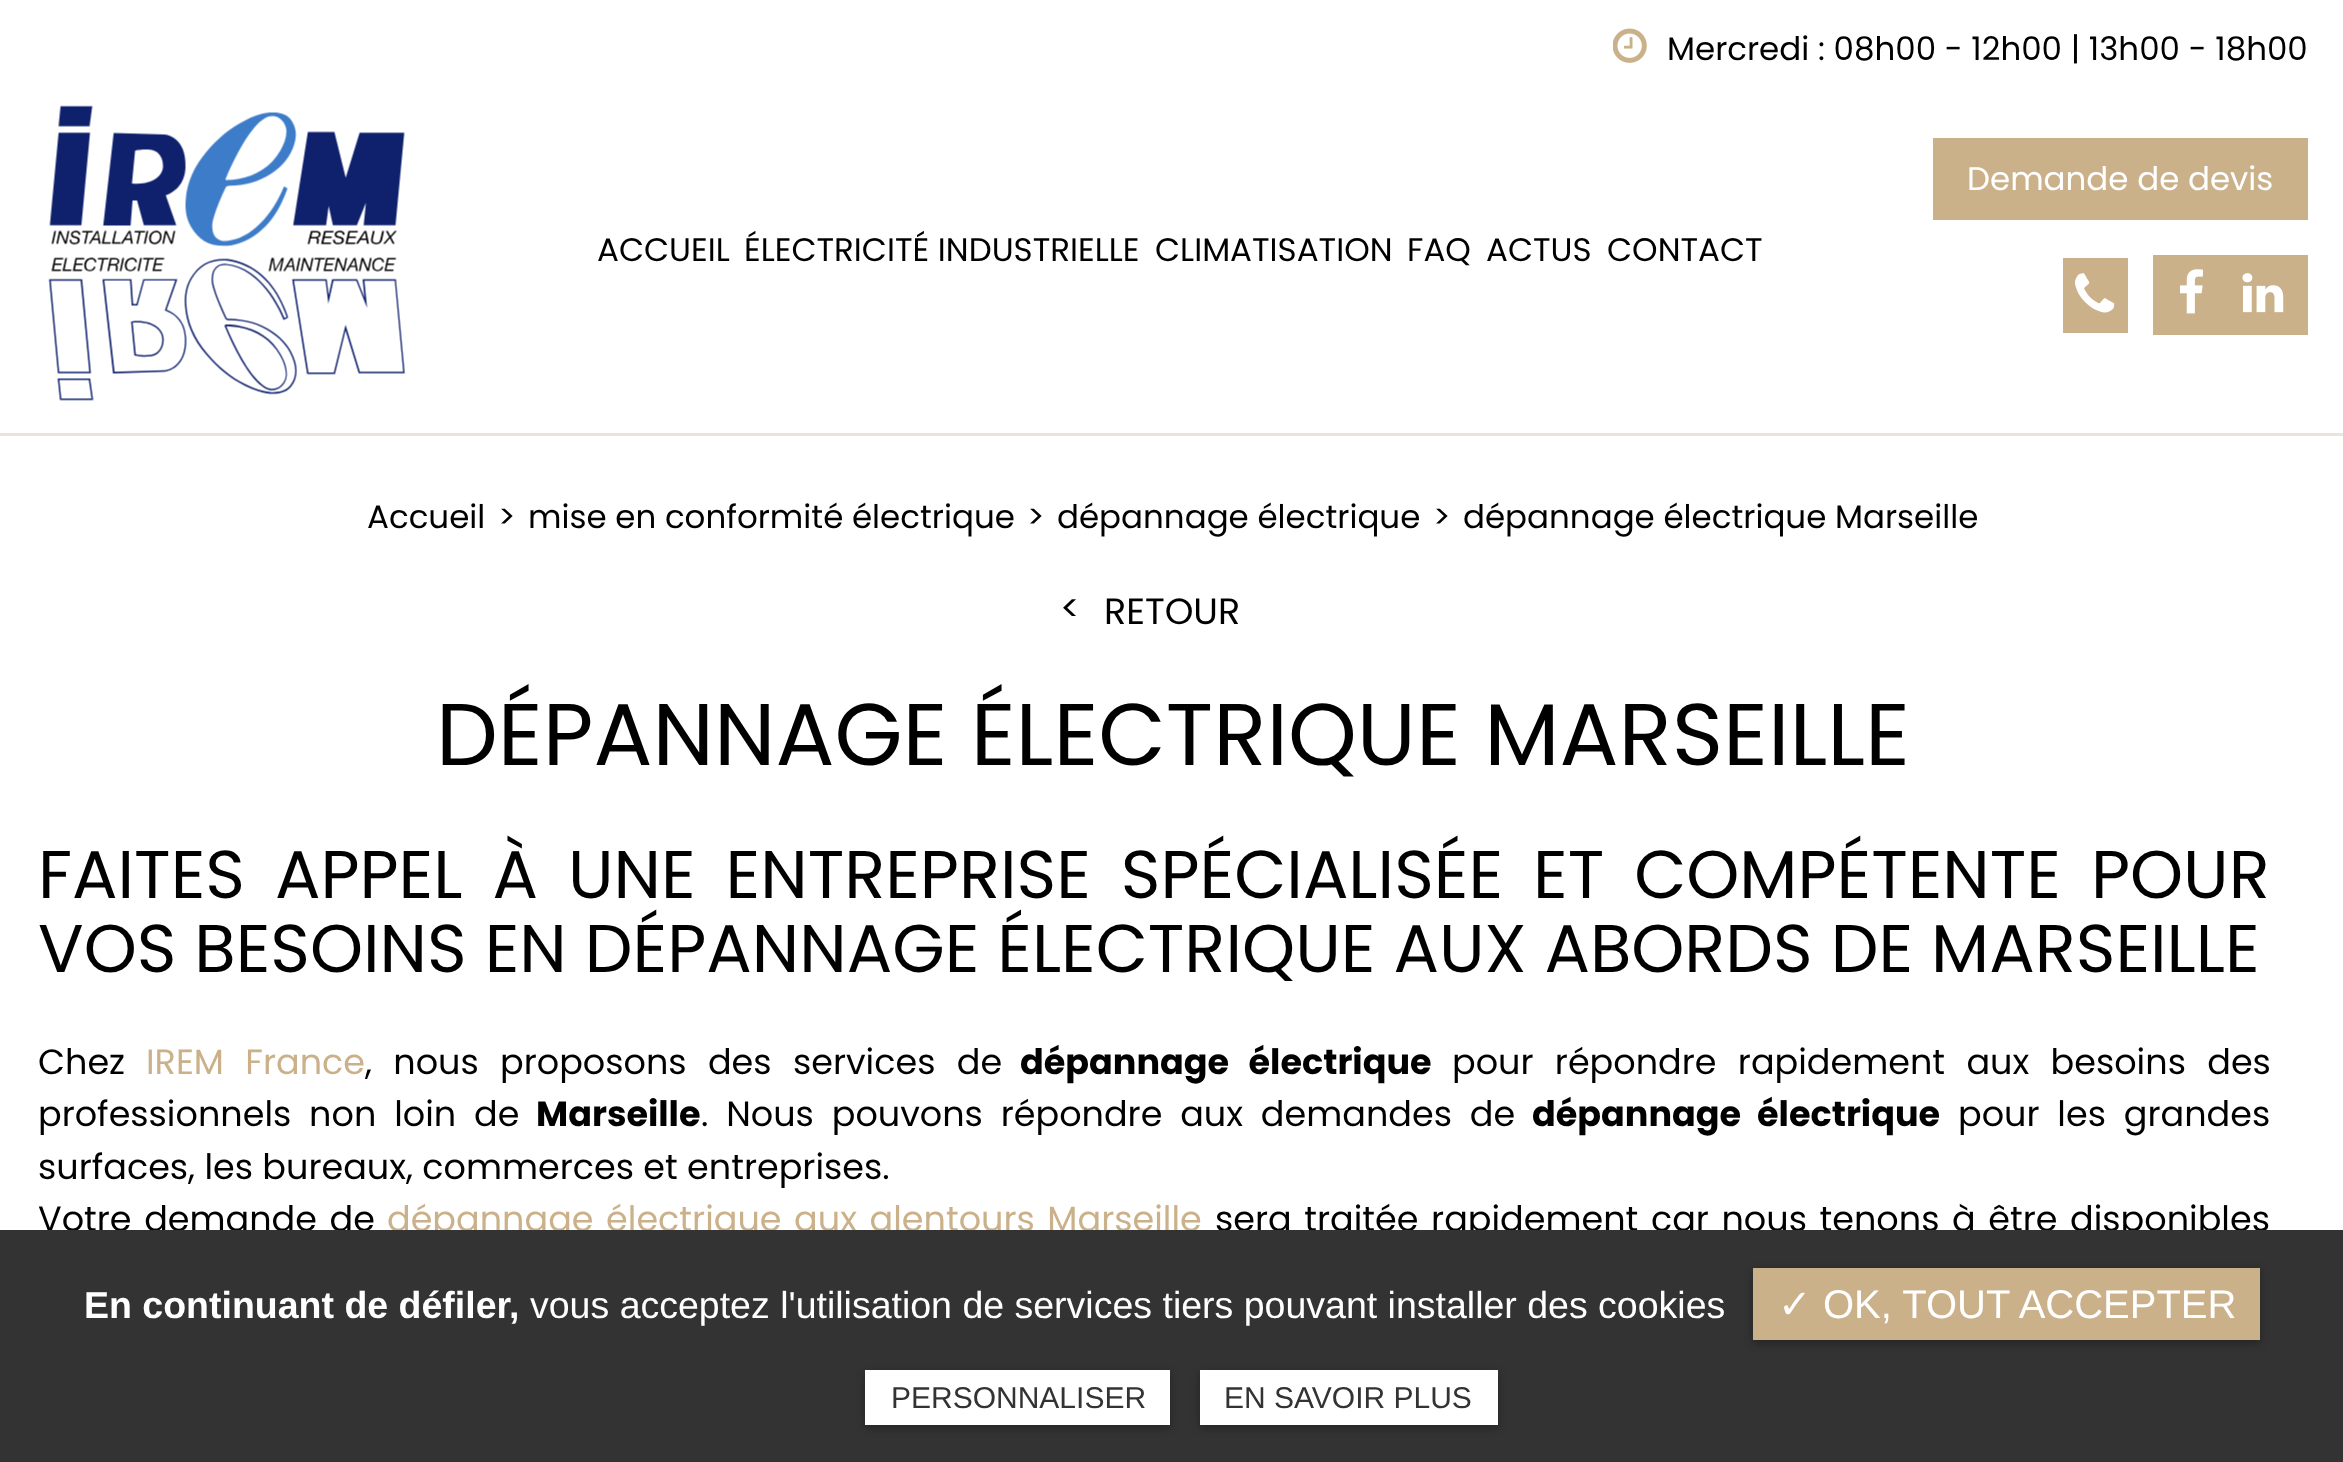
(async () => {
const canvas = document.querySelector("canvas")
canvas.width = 2343
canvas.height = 1462
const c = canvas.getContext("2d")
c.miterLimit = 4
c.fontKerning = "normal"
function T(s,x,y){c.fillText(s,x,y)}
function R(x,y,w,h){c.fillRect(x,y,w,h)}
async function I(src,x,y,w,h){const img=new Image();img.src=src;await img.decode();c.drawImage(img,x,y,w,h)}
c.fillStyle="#fff"
R(0,0,2343,1462)
c.fillStyle="#e9e4de"
R(0,433,2343,3)
await I("1.png",1613,28,34,35)
c.font="32.5px Poppins"
c.fillStyle="#000"
T("Mercredi : 08h00 - 12h00 | 13h00 - 18h00",1667,60)
await I("2.png",48,105,358,296)
c.fillStyle="#cbb18a"
R(1933,138,375,82)
c.fillStyle="#fff"
T("Demande de devis",1967,190)
c.fillStyle="#cbb18a"
R(2063,258,65,75)
await I("3.png",2075,273,40,40)
R(2153,255,155,80)
await I("4.png",2180,269,23,45)
await I("5.png",2242,273,42,40)
c.fillStyle="#000"
T("ACCUEIL",597,261)
T("ÉLECTRICITÉ INDUSTRIELLE",744,261)
T("CLIMATISATION",1155,261)
T("FAQ",1407,261)
T("ACTUS",1486,261)
T("CONTACT",1607,261)
T("Accueil",367,528)
T(">",498,528)
T("mise en conformité électrique",528,528)
T(">",1027,528)
T("dépannage électrique",1057,528)
T(">",1433,528)
T("dépannage électrique Marseille",1463,528)
c.font="36.5px Poppins"
T("<",1060,621)
T("RETOUR",1104,624)
c.font="87.5px Poppins"
T("DÉPANNAGE ÉLECTRIQUE MARSEILLE",436,765)
c.wordSpacing="12px"
c.font="67.5px Poppins"
T("FAITES APPEL À UNE ENTREPRISE SPÉCIALISÉE ET COMPÉTENTE POUR",38,898)
c.wordSpacing="0px"
T("VOS BESOINS EN DÉPANNAGE ÉLECTRIQUE AUX ABORDS DE MARSEILLE",38,972)
c.font="35px Poppins"
T("Chez",38,1074)
c.wordSpacing="12px"
c.fillStyle="#cbb18a"
T("IREM France",146,1074)
c.fillStyle="#000"
T(", nous proposons des services de",365,1074)
c.font="bold 35px Poppins"
T("dépannage électrique",1020,1074)
c.font="35px Poppins"
T("pour répondre rapidement aux besoins des",1452,1074)
c.wordSpacing="8.5px"
T("professionnels non loin de",38,1126)
c.wordSpacing="0px"
c.font="bold 35px Poppins"
T("Marseille",536,1126)
c.wordSpacing="8.5px"
c.font="35px Poppins"
T(". Nous pouvons répondre aux demandes de",701,1126)
c.font="bold 35px Poppins"
T("dépannage électrique",1532,1126)
c.font="35px Poppins"
T("pour les grandes",1958,1126)
c.wordSpacing="0px"
T("surfaces, les bureaux, commerces et entreprises.",38,1179)
c.wordSpacing="3.25px"
T("Votre demande de",38,1231)
c.fillStyle="#cbb18a"
T("dépannage électrique aux alentours Marseille",387,1231)
c.fillStyle="#000"
T("sera traitée rapidement car nous tenons à être disponibles",1215,1231)
c.fillStyle="#333"
R(0,1230,2343,232)
c.wordSpacing="0px"
c.font="bold 37.5px Liberation Sans"
c.fillStyle="#fff"
T("En continuant de défiler,",84,1318)
c.font="37.5px Liberation Sans"
T("vous acceptez l'utilisation de services tiers pouvant installer des cookies",530,1318)
c.fillStyle="#0000004d"
c.filter="blur(4px)"
c.beginPath()
c.rect(1753,1270,507,73)
c.fill()
c.filter="none"
c.fillStyle="#cbb18a"
R(1753,1268,507,72)
c.font="40px DejaVu Sans"
c.fillStyle="#fff"
T("✓",1778,1318)
c.font="40px Liberation Sans"
T("OK, TOUT ACCEPTER",1823,1318)
c.fillStyle="#0000004d"
c.filter="blur(4px)"
c.beginPath()
c.rect(865,1373,305,55)
c.fill()
c.filter="none"
c.fillStyle="#fff"
R(865,1370,305,55)
c.font="30px Liberation Sans"
c.fillStyle="#333"
T("PERSONNALISER",891,1408)
c.fillStyle="#0000004d"
c.filter="blur(4px)"
c.beginPath()
c.rect(1200,1373,298,55)
c.fill()
c.filter="none"
c.fillStyle="#fff"
R(1200,1370,298,55)
c.fillStyle="#333"
T("EN SAVOIR PLUS",1224,1408)
})()
